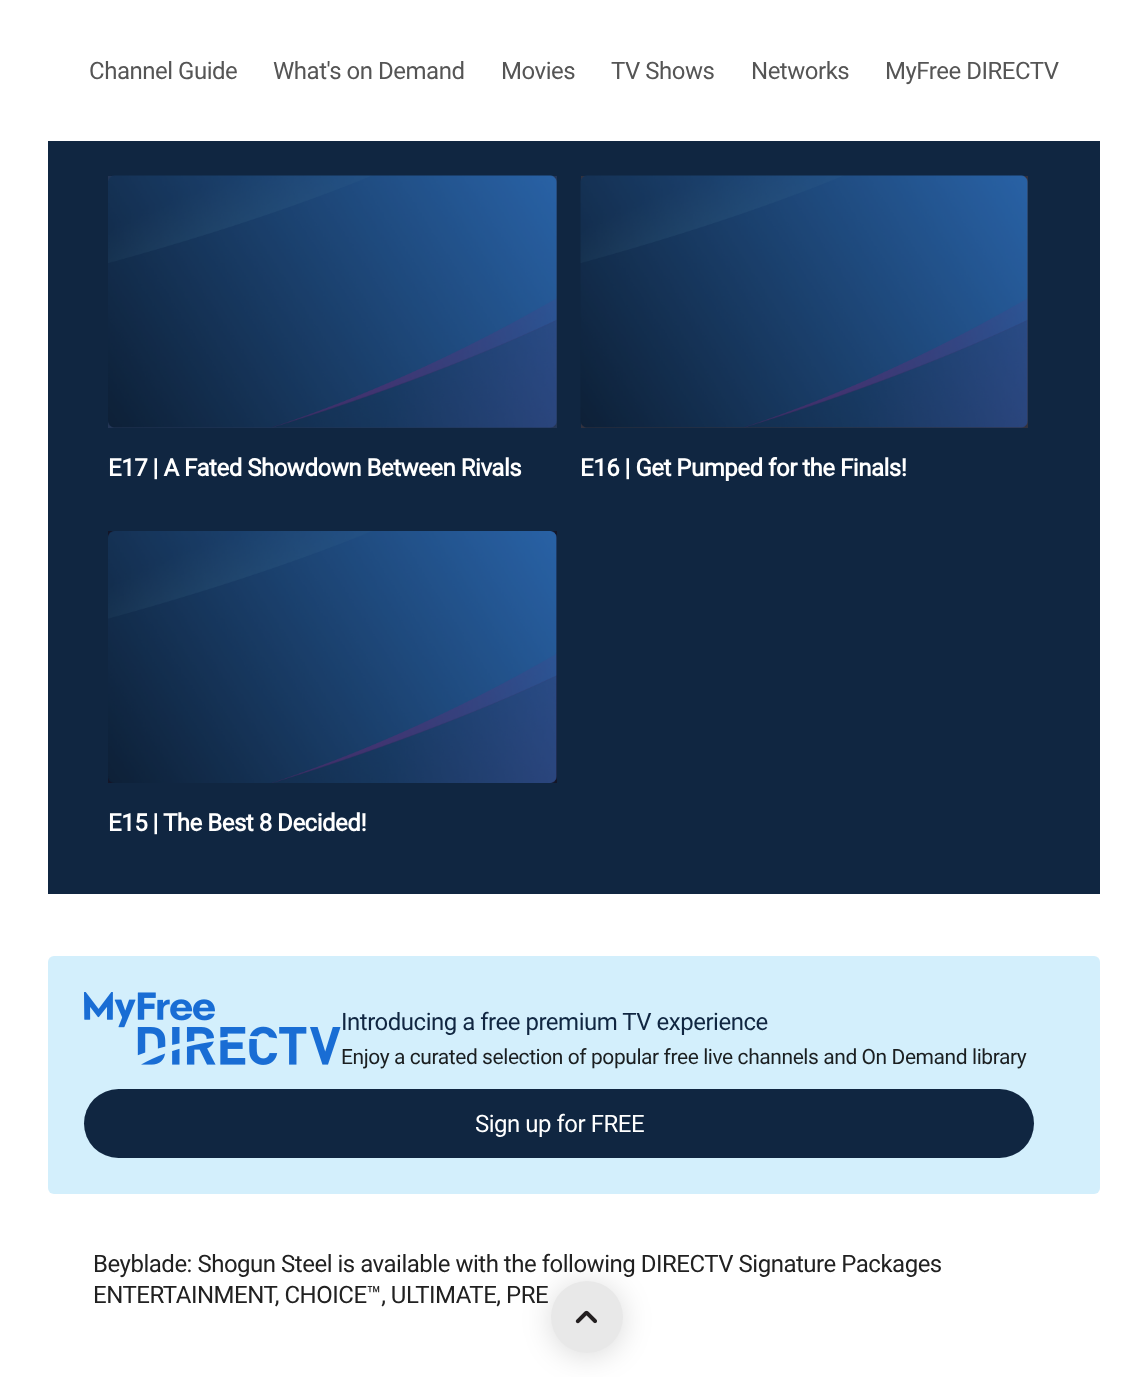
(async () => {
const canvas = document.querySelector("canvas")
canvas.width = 1147
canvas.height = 1377
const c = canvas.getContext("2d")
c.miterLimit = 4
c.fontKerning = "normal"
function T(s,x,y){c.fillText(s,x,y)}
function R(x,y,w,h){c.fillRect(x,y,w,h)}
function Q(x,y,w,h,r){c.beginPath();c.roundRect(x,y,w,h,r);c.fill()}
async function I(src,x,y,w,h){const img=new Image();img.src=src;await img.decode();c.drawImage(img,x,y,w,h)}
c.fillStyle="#fff"
R(0,0,1147,1377)
c.letterSpacing="-0.48px"
c.font="24px Roboto"
c.fillStyle="#555"
T("Channel Guide",89,79)
T("What's on Demand",273,79)
T("Movies",501,79)
T("TV Shows",611,79)
T("Networks",751,79)
T("MyFree DIRECTV",885,79)
c.fillStyle="#102641"
R(48,141,1052,753)
c.fillStyle="#243656"
R(108,176,449,252)
await I("1.png",108,175,449,253)
c.font="bold 24px Roboto"
c.fillStyle="#fff"
T("E17 | A Fated Showdown Between Rivals",108,476)
c.fillStyle="#33323e"
R(581,176,447,252)
await I("2.png",580,175,448,253)
c.fillStyle="#fff"
T("E16 | Get Pumped for the Finals!",580,476)
c.fillStyle="#141628"
R(108,531,449,252)
await I("3.png",108,531,449,252)
c.fillStyle="#fff"
T("E15 | The Best 8 Decided!",108,831)
c.fillStyle="#d3effc"
Q(48,956,1052,238,6)
await I("4.png",84,992,257,73)
c.font="24px Roboto"
c.fillStyle="#102641"
T("Introducing a free premium TV experience",341,1030)
c.letterSpacing="-0.42px"
c.font="21px Roboto"
c.fillStyle="#1b1f21"
T("Enjoy a curated selection of popular free live channels and On Demand library",341,1064)
c.fillStyle="#102641"
Q(84,1089,950,69,34.5)
c.letterSpacing="-0.48px"
c.font="24px Roboto"
c.fillStyle="#fff"
T("Sign up for FREE",475,1132)
c.fillStyle="#00000026"
c.filter="blur(15px)"
c.beginPath()
c.roundRect(551,1284,72,72,36)
c.fill()
c.filter="none"
c.fillStyle="#e8e8e8"
c.beginPath()
c.arc(587,1317,36,0,7)
c.fill()
await I("5.png",575,1310,22,14)
c.fillStyle="#212121"
T("Beyblade: Shogun Steel is available with the following DIRECTV Signature Packages",93,1272)
T("ENTERTAINMENT, CHOICE™, ULTIMATE, PRE",93,1303)
})()
